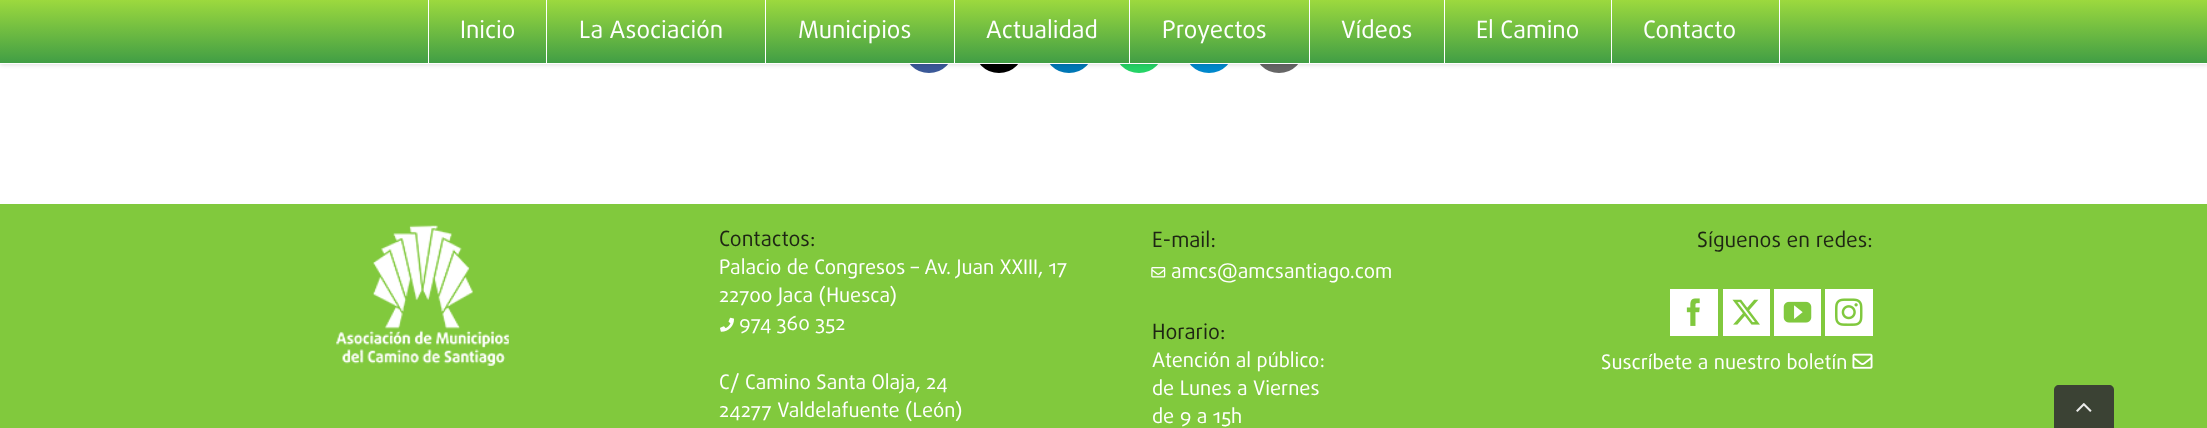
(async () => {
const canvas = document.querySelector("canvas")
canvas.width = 2207
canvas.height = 428
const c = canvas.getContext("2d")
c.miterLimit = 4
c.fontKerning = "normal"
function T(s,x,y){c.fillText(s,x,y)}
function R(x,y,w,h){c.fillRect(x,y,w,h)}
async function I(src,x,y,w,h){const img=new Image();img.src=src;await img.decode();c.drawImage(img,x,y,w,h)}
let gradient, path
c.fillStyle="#fff"
R(0,0,2207,428)
c.fillStyle="#3b5998"
c.beginPath()
c.arc(929,48,23.5,0,7)
c.fill()
c.strokeStyle="#3b5998"
c.lineWidth=3
c.stroke()
c.fillStyle="#000"
c.beginPath()
c.arc(999,48,23.5,0,7)
c.fill()
c.strokeStyle="#000"
c.stroke()
c.fillStyle="#0077b5"
c.beginPath()
c.arc(1069,48,23.5,0,7)
c.fill()
c.strokeStyle="#0077b5"
c.stroke()
c.fillStyle="#25d366"
c.beginPath()
c.arc(1139,48,23.5,0,7)
c.fill()
c.strokeStyle="#25d366"
c.stroke()
c.fillStyle="#08c"
c.beginPath()
c.arc(1209,48,23.5,0,7)
c.fill()
c.strokeStyle="#08c"
c.stroke()
c.fillStyle="#666"
c.beginPath()
c.arc(1279,48,23.5,0,7)
c.fill()
c.strokeStyle="#666"
c.stroke()
c.fillStyle="#0000001f"
c.filter="blur(2px)"
c.beginPath()
c.rect(0,1,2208,64)
c.fill()
c.filter="none"
gradient = c.createLinearGradient(1104,0,1104,63)
gradient.addColorStop(0,"#9cd93e")
gradient.addColorStop(1,"#419e45")
c.fillStyle = gradient
R(0,0,2207,63)
c.fillStyle="#fff"
R(0,63,2207,1)
R(428,0,1,63)
c.font="24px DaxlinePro"
T("Inicio",460,38)
R(546,0,1,63)
T("La Asociación",579,38)
R(765,0,1,63)
T("Municipios",798,38)
R(954,0,1,63)
T("Actualidad",986,38)
R(1129,0,1,63)
T("Proyectos",1162,38)
R(1309,0,1,63)
T("Vídeos",1341,38)
R(1444,0,1,63)
T("El Camino",1476,38)
R(1779,0,1,63)
R(1611,0,1,63)
T("Contacto",1643,38)
c.fillStyle="#81c93d"
R(0,204,2207,224)
await I("1.png",336,225,173,141)
c.font="21px DaxlinePro"
c.fillStyle="#1e2514"
T("Contactos:",719,246)
c.font="20px DaxlinePro"
c.fillStyle="#fff"
T("Palacio de Congresos – Av. Juan XXIII, 17",719,274)
T("22700 Jaca (Huesca)",719,302)
await I("2.png",720,317,14,15)
T("974 360 352",739,330)
T("C/ Camino Santa Olaja, 24",719,389)
T("24277 Valdelafuente (León)",719,417)
c.font="21px DaxlinePro"
c.fillStyle="#1e2514"
T("E-mail:",1152,247)
await I("3.png",1151,267,15,11)
c.font="20px DaxlinePro"
c.fillStyle="#fff"
T("amcs@amcsantiago.com",1171,278)
c.font="21px DaxlinePro"
c.fillStyle="#1e2514"
T("Horario:",1152,339)
c.font="20px DaxlinePro"
c.fillStyle="#fff"
T("Atención al público:",1152,367)
T("de Lunes a Viernes",1152,395)
T("de 9 a 15h",1152,423)
c.font="21px DaxlinePro"
c.fillStyle="#1e2514"
T("Síguenos en redes:",1697,247)
c.fillStyle="#fff"
R(1670,289,48,47)
await I("4.png",1686,298,14,28)
R(1723,289,47,47)
await I("5.png",1732,299,28,26)
R(1774,289,47,47)
await I("6.png",1783,301,29,22)
R(1825,289,48,47)
await I("7.png",1835,298,28,28)
c.font="20px DaxlinePro"
T("Suscríbete a nuestro boletín",1601,369)
await I("8.png",1852,353,21,16)
c.fillStyle="#3b4234"
path = new Path2D("M2059 385h50c3 0 5 2 5 5v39h-60v-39c0-3 2-5 5-5z")
c.fill(path)
await I("9.png",2076,403,16,9)
})()
